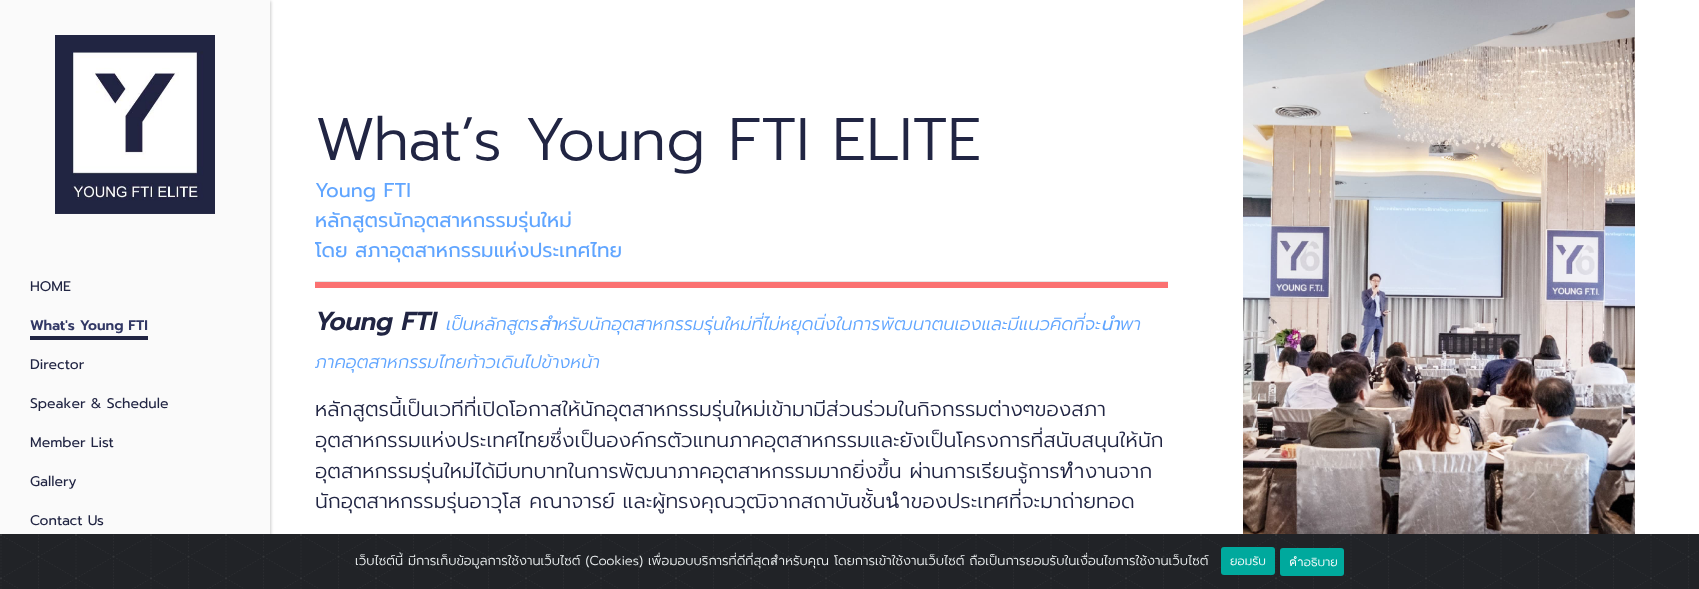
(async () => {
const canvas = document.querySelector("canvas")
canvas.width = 1699
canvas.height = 589
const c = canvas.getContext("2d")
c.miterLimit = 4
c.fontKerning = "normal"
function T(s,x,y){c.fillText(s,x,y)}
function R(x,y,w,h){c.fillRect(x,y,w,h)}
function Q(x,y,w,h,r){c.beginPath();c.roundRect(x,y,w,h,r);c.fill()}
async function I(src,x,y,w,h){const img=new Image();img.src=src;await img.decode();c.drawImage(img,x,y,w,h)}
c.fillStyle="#fff"
R(0,0,1699,589)
c.fillStyle="#00000033"
c.filter="blur(1.5px)"
c.beginPath()
c.rect(1,1,270,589)
c.fill()
c.filter="none"
c.fillStyle="#fafafa"
R(0,0,270,534)
await I("1.png",55,35,160,179)
c.font="14px Prompt"
c.fillStyle="#212543"
T("HOME",30,291)
c.font="600 14px Prompt"
c.fillStyle="#323865"
T("What's Young FTI",30,330)
c.fillStyle="#212543"
R(30,336,118,4)
c.font="14px Prompt"
T("Director",30,369)
T("Speaker & Schedule",30,408)
T("Member List",30,447)
T("Gallery",30,486)
T("Contact Us",30,525)
c.font="300 60px Prompt"
T("What’s Young FTI ELITE",315,160)
c.font="20px Prompt"
c.fillStyle="#60a5ff"
T("Young FTI",315,197)
T("หลักสูตรนักอุตสาหกรรมรุ่นใหม่",315,227)
T("โดย สภาอุตสาหกรรมแห่งประเทศไทย",315,257)
c.fillStyle="#e6e6e6"
R(315,281,853,1)
c.fillStyle="#fb7171"
R(315,282,853,6)
c.font="italic bold 25px Prompt"
c.fillStyle="#212543"
T("Young FTI",315,330)
c.font="italic 300 18px Prompt"
c.fillStyle="#60a5ff"
T("เป็นหลักสูตรสำหรับนักอุตสาหกรรมรุ่นใหม่ที่ไม่หยุดนิ่งในการพัฒนาตนเองและมีแนวคิดที่จะนำพา",446,330)
T("ภาคอุตสาหกรรมไทยก้าวเดินไปข้างหน้า",315,368)
c.font="300 20.5px Prompt"
c.fillStyle="#212543"
T("หลักสูตรนี้เป็นเวทีที่เปิดโอกาสให้นักอุตสาหกรรมรุ่นใหม่เข้ามามีส่วนร่วมในกิจกรรมต่างๆของสภา",315,416)
T("อุตสาหกรรมแห่งประเทศไทยซึ่งเป็นองค์กรตัวแทนภาคอุตสาหกรรมและยังเป็นโครงการที่สนับสนุนให้นัก",315,447)
T("อุตสาหกรรมรุ่นใหม่ได้มีบทบาทในการพัฒนาภาคอุตสาหกรรมมากยิ่งขึ้น ผ่านการเรียนรู้การทำงานจาก",315,478)
T("นักอุตสาหกรรมรุ่นอาวุโส คณาจารย์ และผู้ทรงคุณวุฒิจากสถาบันชั้นนำของประเทศที่จะมาถ่ายทอด",315,508)
await I("2.png",1243,0,392,534)
c.fillStyle="#212327"
R(1698,534,1,55)
await I("3.png",0,534,1698,55)
c.font="300 13px Prompt"
c.fillStyle="#ecf0f1"
T("เว็บไซต์นี้ มีการเก็บข้อมูลการใช้งานเว็บไซต์ (Cookies) เพื่อมอบบริการที่ดีที่สุดสำหรับคุณ โดยการเข้าใช้งานเว็บไซต์ ถือเป็นการยอมรับในเงื่อนไขการใช้งานเว็บไซต์",355,565)
c.fillStyle="#00a99d"
Q(1221,547,54,28,3)
c.font="300 12px Prompt"
c.fillStyle="#fff"
T("ยอมรับ",1230,565)
c.fillStyle="#00a99d"
Q(1280,548,64,28,3)
c.fillStyle="#fff"
T("คำอธิบาย",1289,566)
})()
